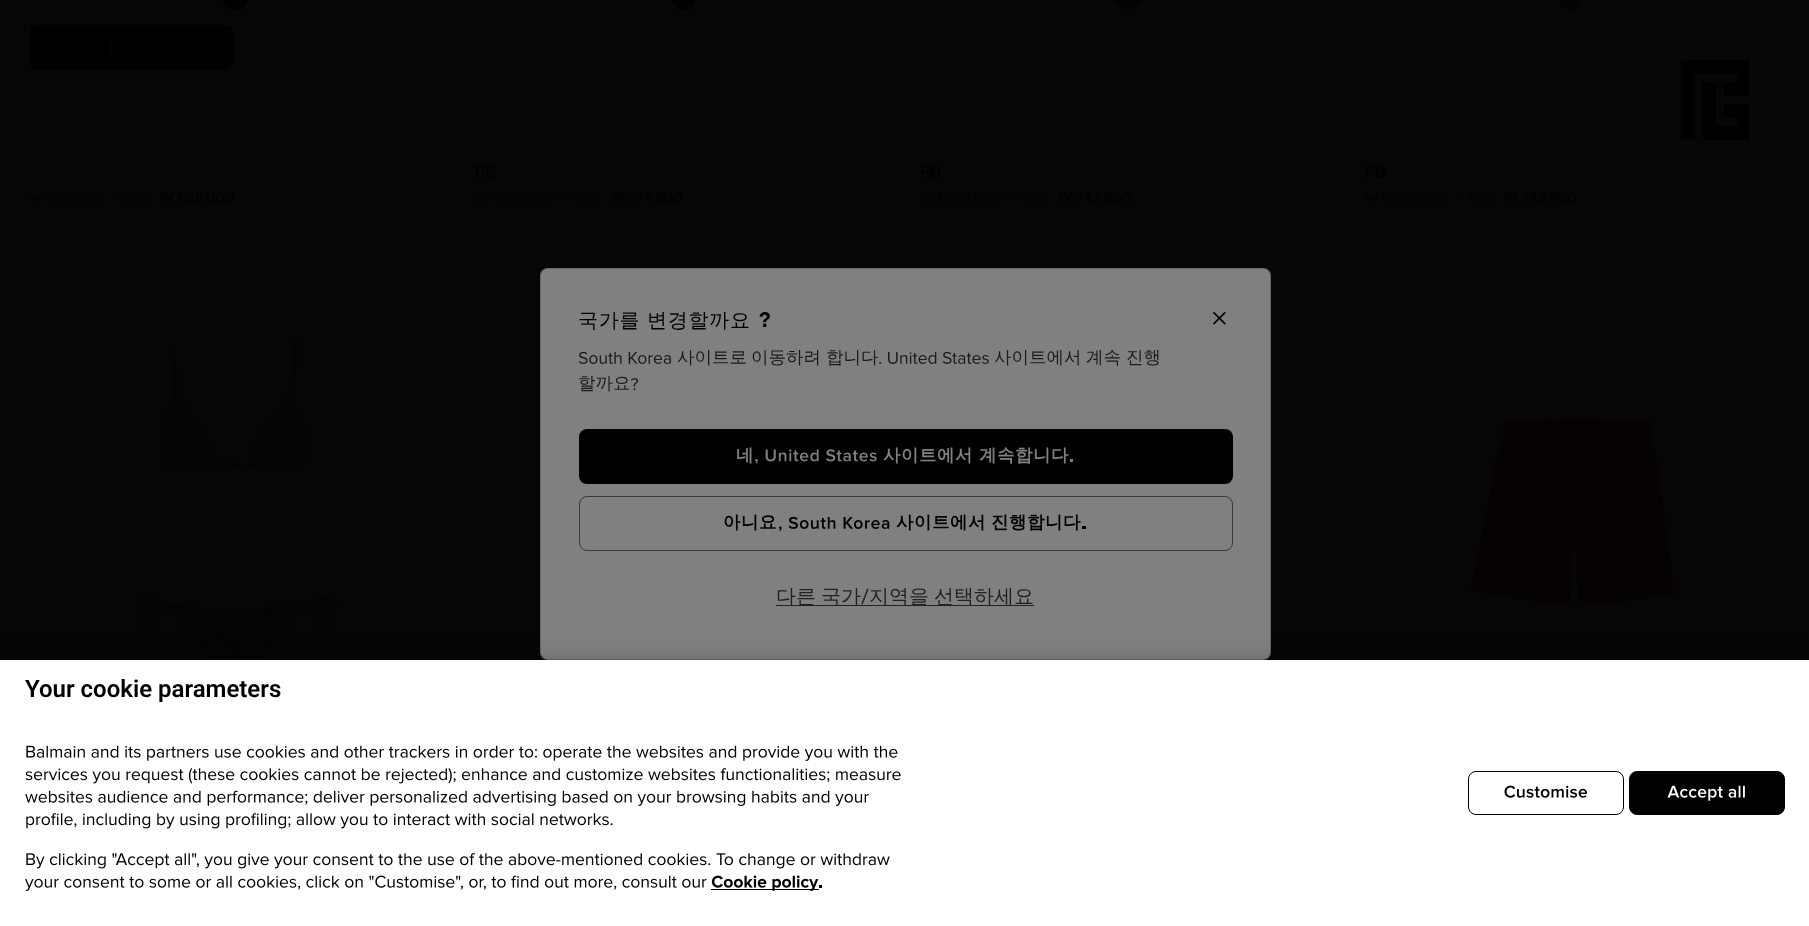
(async () => {
const canvas = document.querySelector("canvas")
canvas.width = 1809
canvas.height = 926
const c = canvas.getContext("2d")
c.miterLimit = 4
c.fontKerning = "normal"
function T(s,x,y){c.fillText(s,x,y)}
function R(x,y,w,h){c.fillRect(x,y,w,h)}
function Q(x,y,w,h,r){c.beginPath();c.roundRect(x,y,w,h,r);c.fill()}
async function I(src,x,y,w,h){const img=new Image();img.src=src;await img.decode();c.drawImage(img,x,y,w,h)}
let path
c.fillStyle="#060606"
R(0,0,1809,926)
await I("1.png",221,0,29,10)
await I("2.png",30,192,73,13)
c.fillStyle="#030303"
R(30,199,73,1)
await I("3.png",112,192,37,11)
await I("4.png",160,192,74,13)
await I("5.png",671,0,26,10)
await I("6.png",476,165,20,13)
await I("7.png",475,192,79,13)
R(475,199,79,1)
await I("8.png",564,192,37,11)
await I("9.png",611,192,71,13)
await I("10.png",1113,0,30,10)
await I("6.png",921,165,20,13)
await I("11.png",920,192,82,13)
R(920,199,83,1)
await I("3.png",1012,192,37,11)
await I("12.png",1059,192,72,13)
await I("13.png",1558,0,28,10)
await I("6.png",1366,165,20,13)
await I("11.png",1365,192,82,13)
R(1365,199,83,1)
await I("3.png",1457,192,37,11)
await I("12.png",1504,192,72,13)
await I("14.png",135,340,205,320)
await I("15.png",1470,417,205,187)
c.fillStyle="#000"
Q(30,25,203,45,8)
c.fillStyle="#060606"
R(111,39,1,15)
c.fillStyle="#000"
path = new Path2D("M1681 60v80h14v-66h43v8h-14v14h26v-36z")
c.fill(path)
path = new Path2D("M1724 118h14v8h-22v-44h-13v58h47v-36h-26z")
c.fill(path)
c.fillStyle="#808080"
Q(540,268,731,392,8)
c.beginPath()
c.roundRect(540.5,268.5,730,391,7.5)
c.strokeStyle="#00000033"
c.stroke()
c.letterSpacing="0.75px"
c.font="500 20px WenQuanYi Zen Hei"
c.fillStyle="#000"
T("국가를 변경할까요",578,327)
c.font="500 20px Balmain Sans"
T("?",759,327)
await I("16.png",578,351,93,13)
c.letterSpacing="0px"
c.font="500 17.5px WenQuanYi Zen Hei"
c.fillStyle="#1a1a1a"
T("사이트로",677,363)
T("이동하려",751,363)
T("합니다",826,363)
await I("17.png",879,351,110,13)
T("사이트에서",994,363)
T("계속",1086,363)
T("진행",1126,363)
T("할까요",578,389)
await I("18.png",631,378,8,13)
c.fillStyle="#000"
Q(579,429,654,55,8)
c.letterSpacing="0.5px"
c.font="bold 17.5px WenQuanYi Zen Hei"
c.fillStyle="#808080"
T("네",736,461)
await I("19.png",755,449,122,15)
T("사이트에서",883,461)
T("계속합니다",979,461)
R(1070,459,3,3)
c.beginPath()
c.roundRect(579.5,496.5,653,54,7.5)
c.strokeStyle="#3b3b3b"
c.stroke()
c.fillStyle="#000"
T("아니요",723,528)
await I("20.png",779,516,111,15)
T("사이트에서",896,528)
T("진행합니다",991,528)
R(1082,526,4,3)
c.fillStyle="#222"
R(776,605,258,1)
c.letterSpacing="0px"
c.wordSpacing="-1px"
c.font="500 20px WenQuanYi Zen Hei"
T("다른 국가",776,603)
c.wordSpacing="0px"
c.font="20px Roboto"
T("/",861,603)
c.wordSpacing="-1px"
c.font="500 20px WenQuanYi Zen Hei"
T("지역을 선택하세요",869,603)
await I("21.png",1213,312,13,13)
c.fillStyle="#00000033"
c.filter="blur(11px)"
c.beginPath()
c.rect(0,660,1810,266)
c.fill()
c.filter="none"
c.fillStyle="#fff"
R(0,660,1809,266)
c.wordSpacing="0px"
c.font="600 24px Roboto"
c.fillStyle="#000"
T("Your cookie parameters",25,697)
await I("22.png",26,745,872,16)
await I("23.png",25,768,876,16)
await I("24.png",25,790,844,16)
await I("25.png",26,813,587,16)
await I("26.png",26,853,864,16)
await I("27.png",25,875,682,16)
R(711,889,108,1)
await I("28.png",711,875,108,16)
c.fillStyle="#030303"
R(819,885,3,3)
c.beginPath()
c.roundRect(1468.5,771.5,155,43,7.5)
c.strokeStyle="#000"
c.stroke()
await I("29.png",1504,785,84,13)
c.fillStyle="#000"
c.beginPath()
c.roundRect(1629.5,771.5,155,43,7.5)
c.fill()
c.stroke()
await I("30.png",1667,785,78,16)
})()
